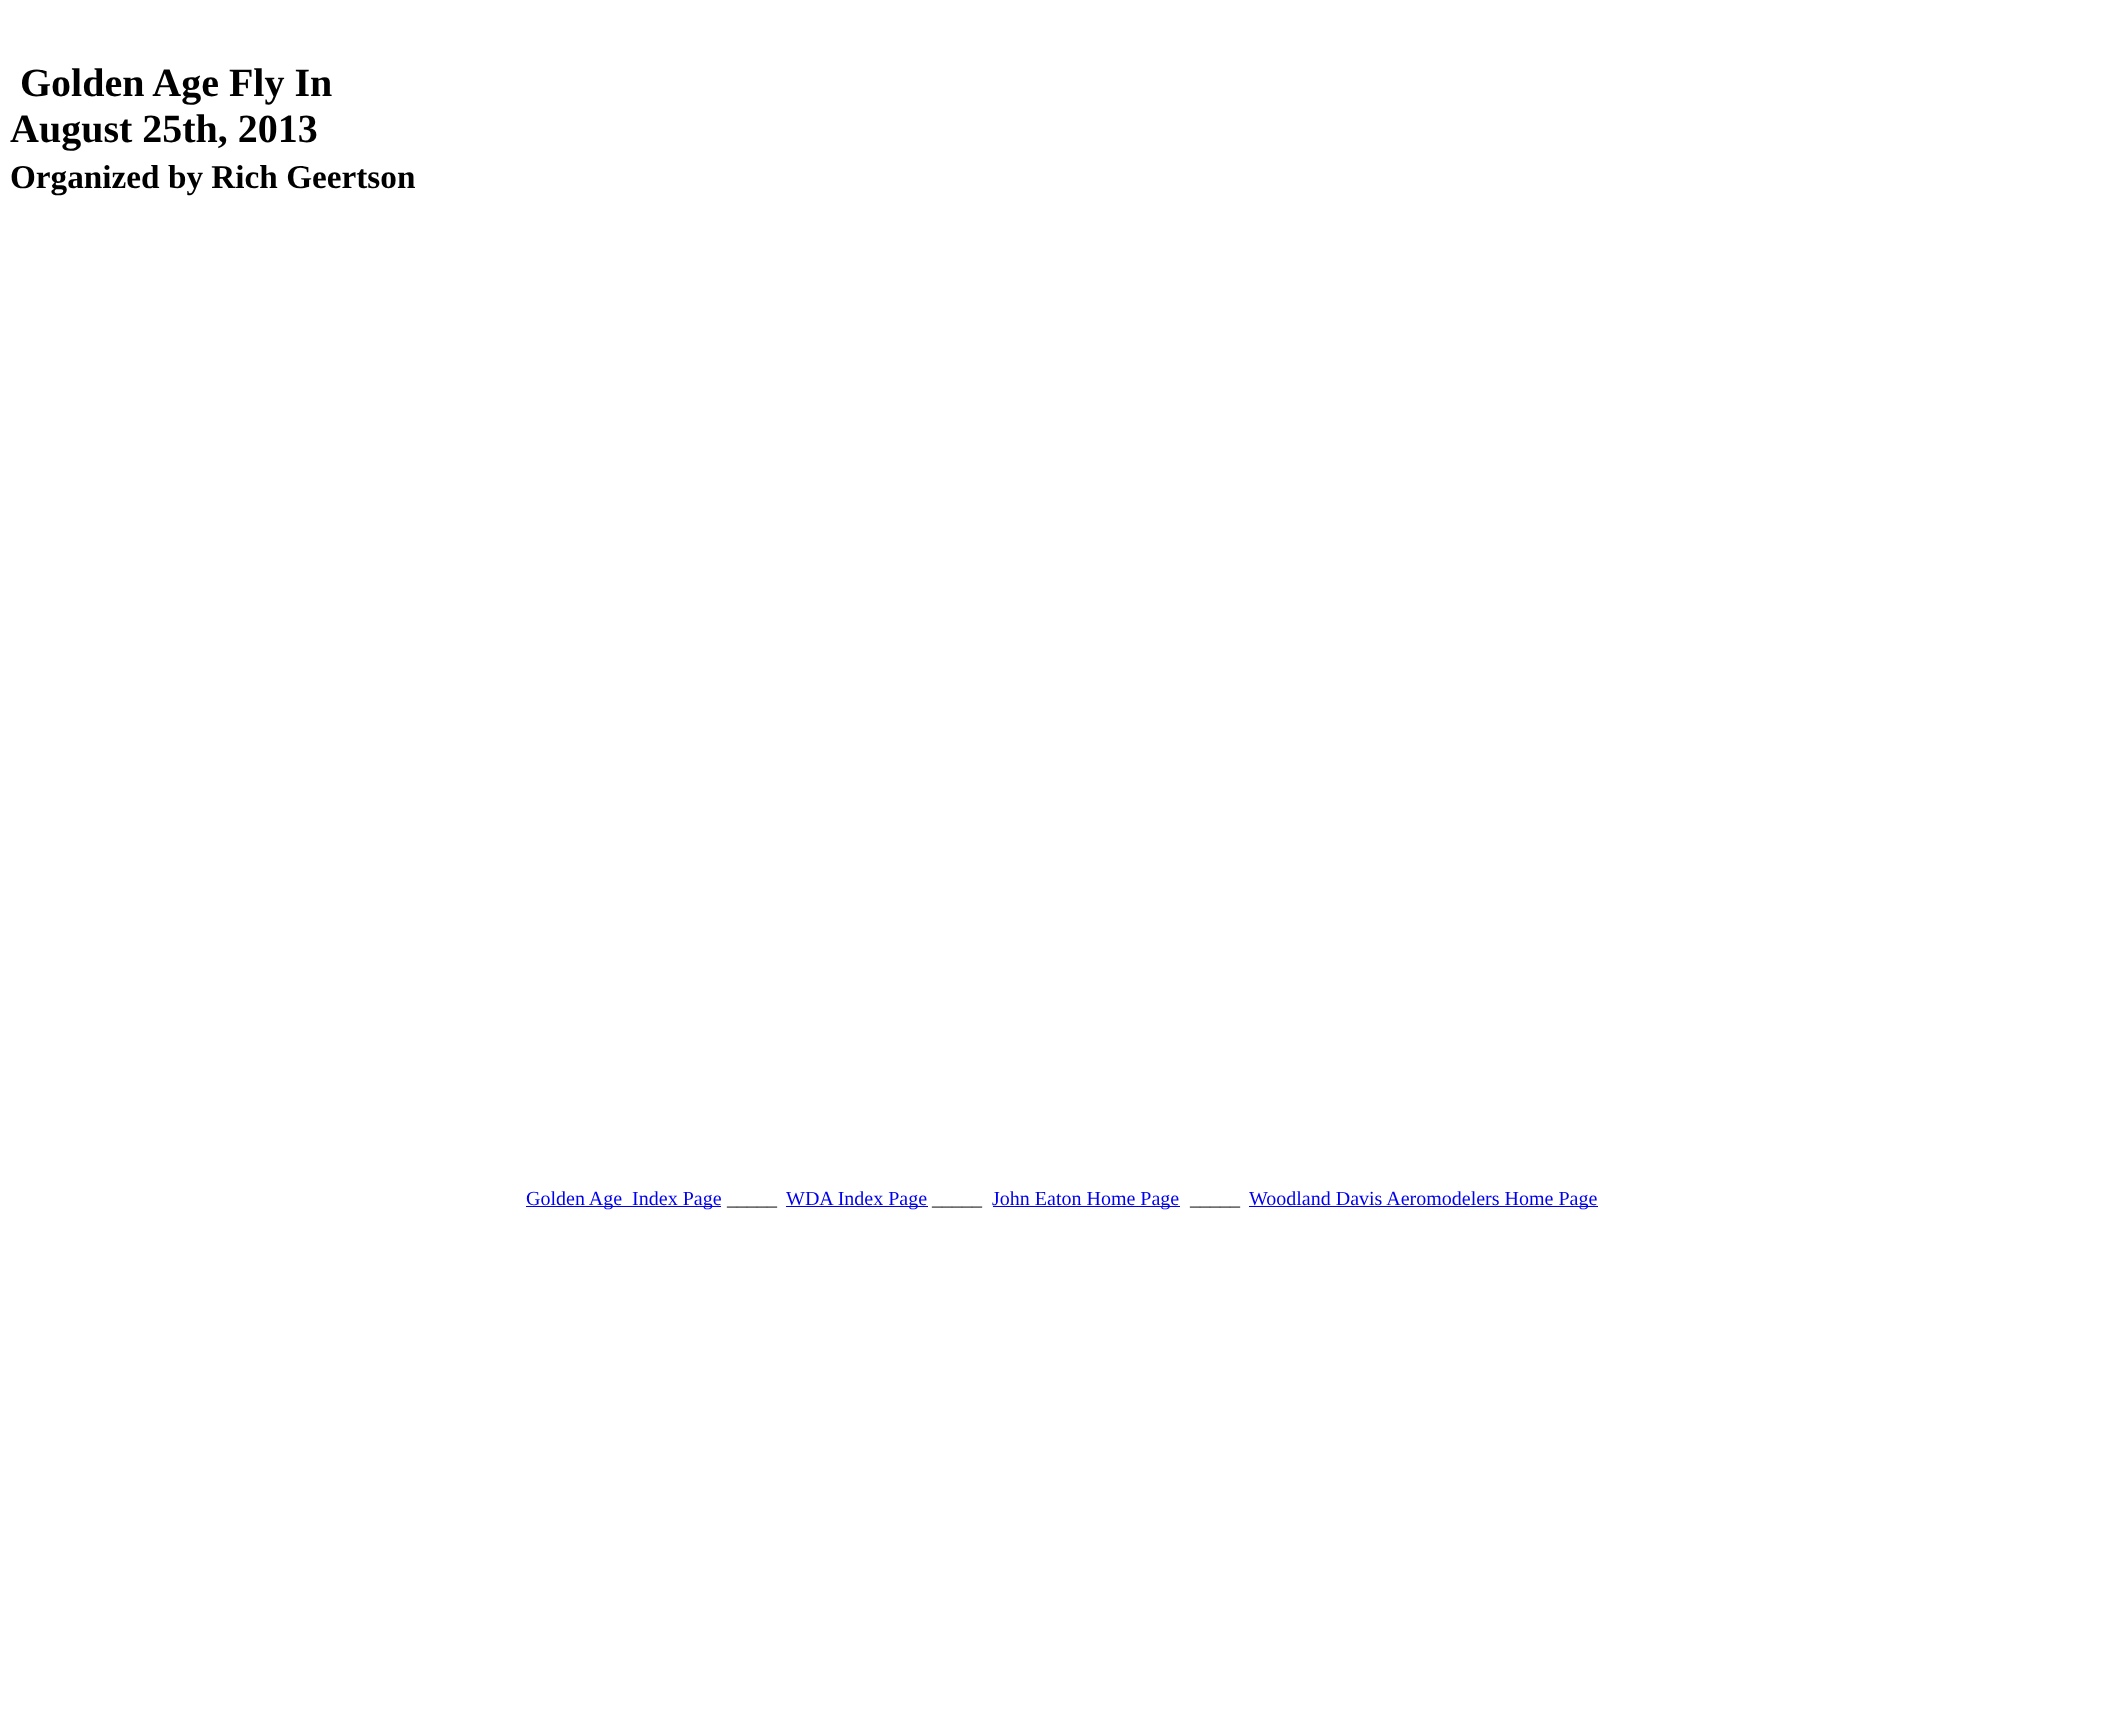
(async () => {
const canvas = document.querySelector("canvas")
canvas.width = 2123
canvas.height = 1711
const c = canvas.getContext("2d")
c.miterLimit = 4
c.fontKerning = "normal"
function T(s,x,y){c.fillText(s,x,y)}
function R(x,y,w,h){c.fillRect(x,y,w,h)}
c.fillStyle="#fff"
R(0,0,2123,1711)
c.font="bold 40px Liberation Serif"
c.fillStyle="#000"
T("Golden Age Fly In",20,96)
T("August 25th, 2013",10,142)
c.font="bold 33.25px Liberation Serif"
T("Organized by Rich Geertson",10,188)
c.fillStyle="#00e"
R(526,1206,195,1)
c.font="20px Liberation Serif"
T("Golden Age  Index Page",526,1205)
c.fillStyle="#000"
T("_____",727,1205)
c.fillStyle="#00e"
R(786,1206,142,1)
T("WDA Index Page",786,1205)
c.fillStyle="#000"
T("_____",932,1205)
c.fillStyle="#00e"
R(993,1206,187,1)
T("John Eaton Home Page",992,1205)
c.fillStyle="#000"
T("_____",1190,1205)
c.fillStyle="#00e"
R(1249,1206,349,1)
T("Woodland Davis Aeromodelers Home Page",1249,1205)
})()
